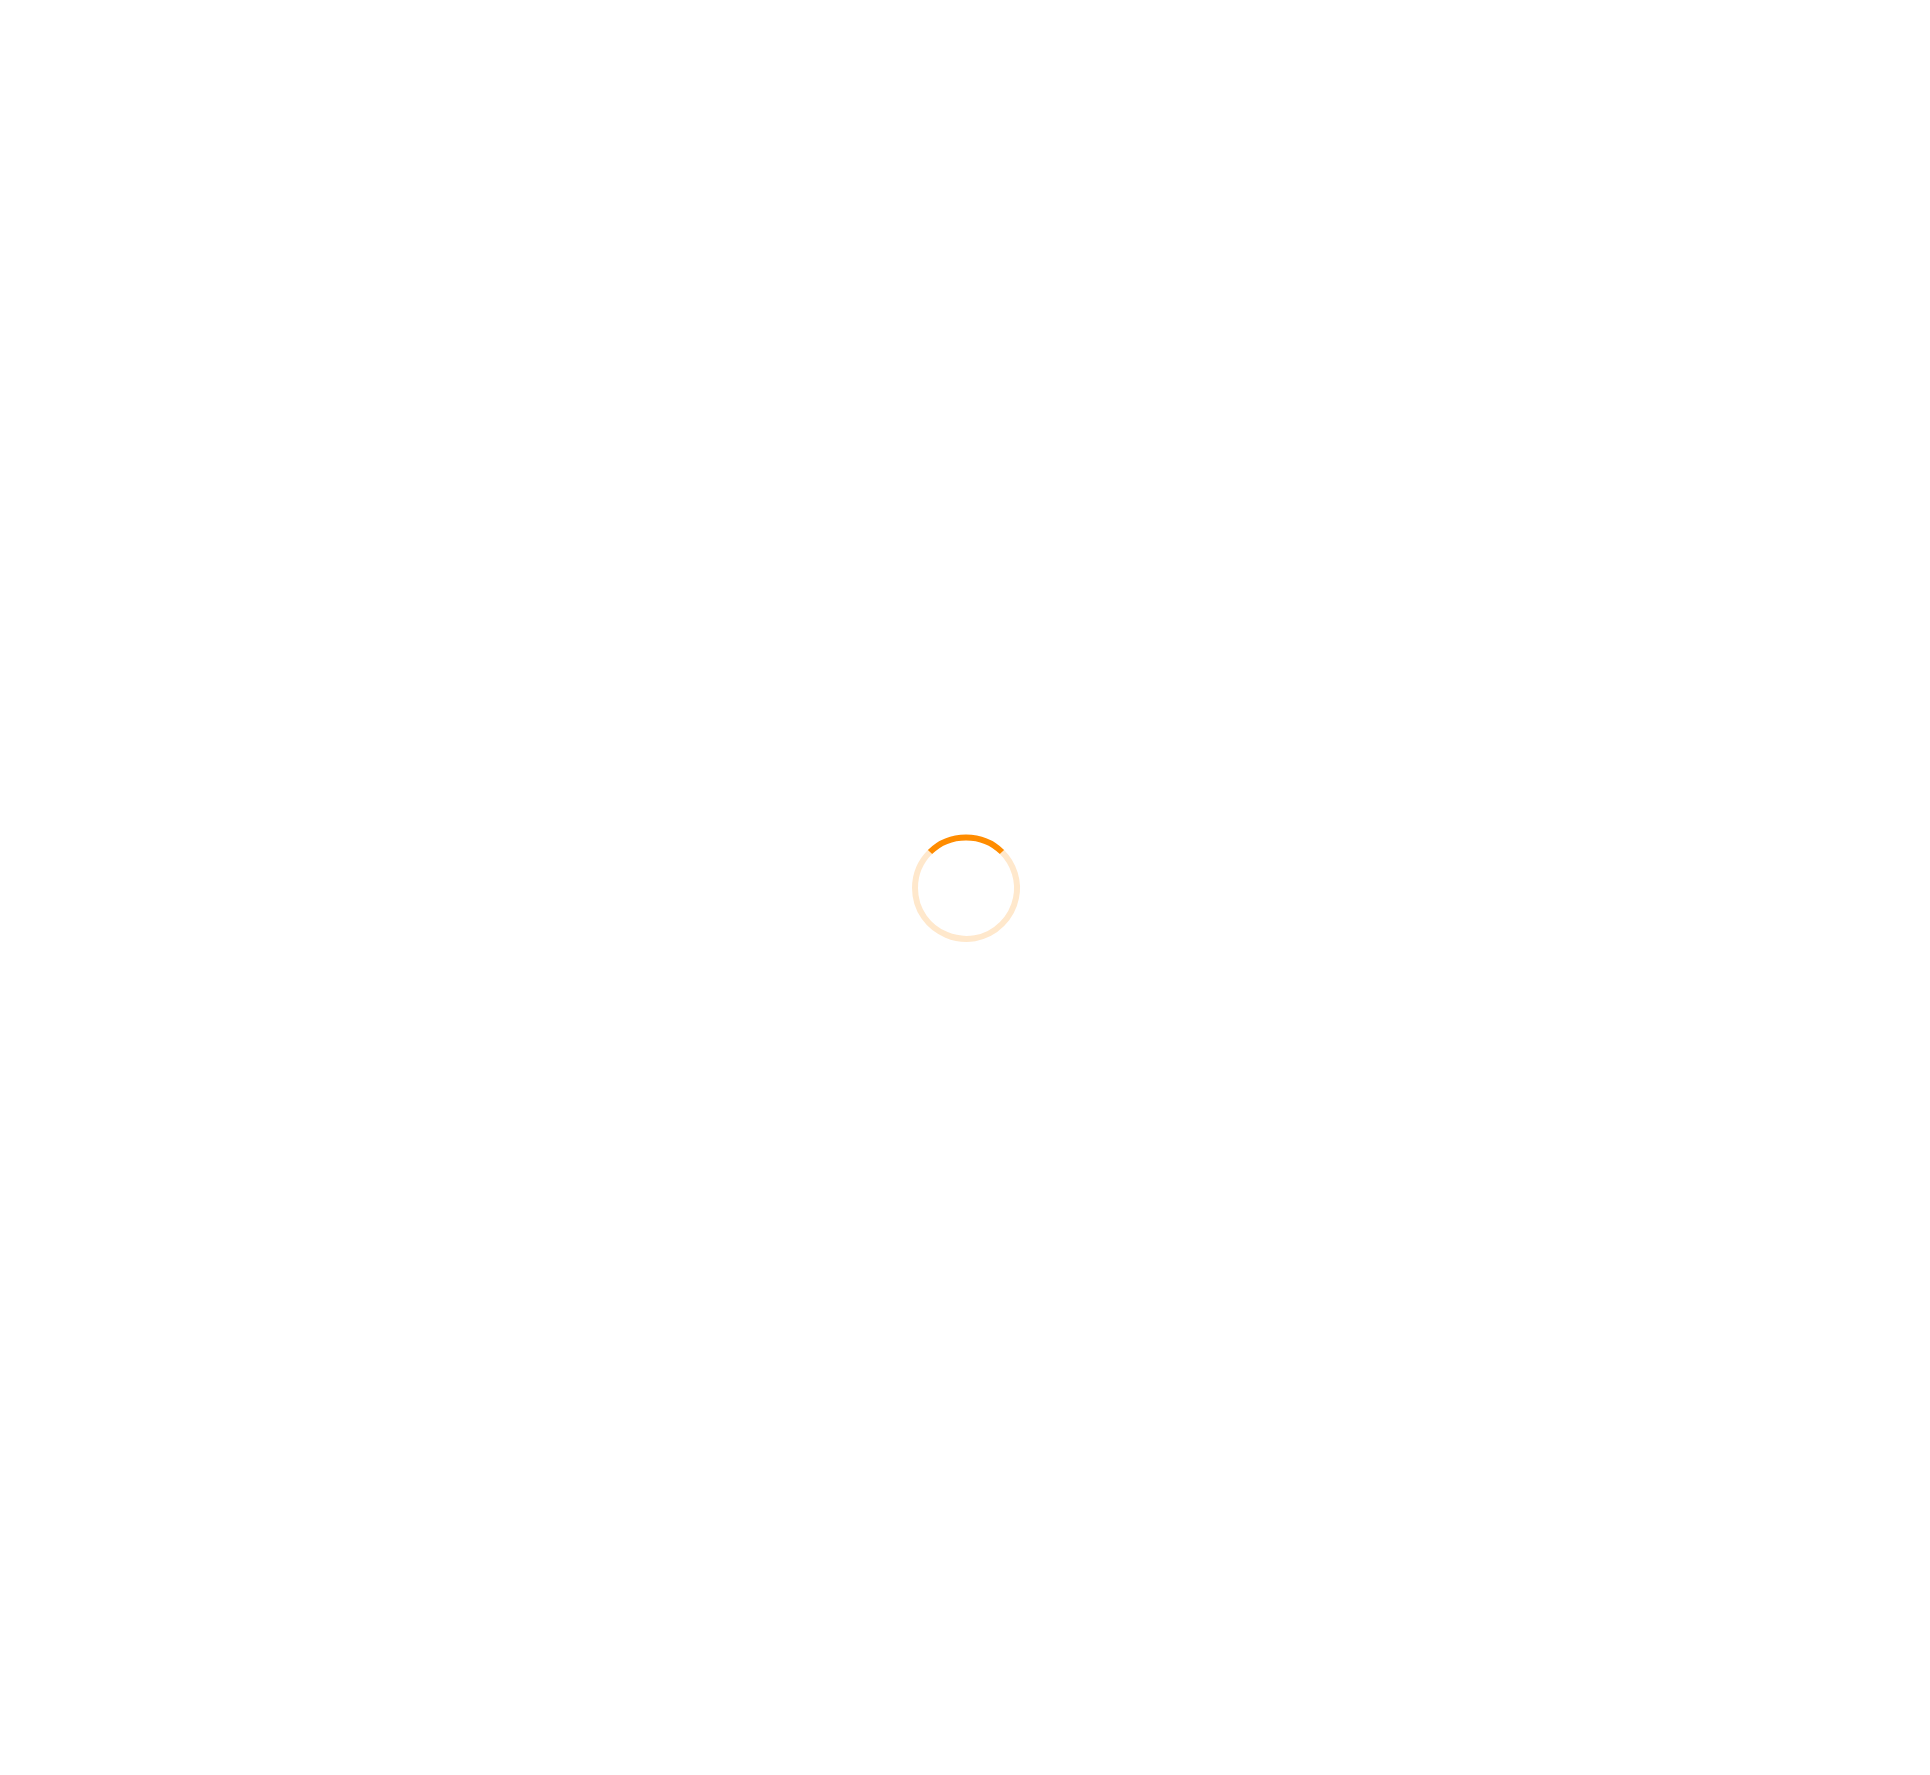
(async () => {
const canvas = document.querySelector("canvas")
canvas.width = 1930
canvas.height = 1775
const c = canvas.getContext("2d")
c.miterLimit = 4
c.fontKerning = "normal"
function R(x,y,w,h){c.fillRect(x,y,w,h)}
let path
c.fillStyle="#fff"
R(0,0,1930,1775)
path = new Path2D("M930 852c19.5-19.5 52.5-19.5 72 0")
c.strokeStyle="#ff8c00"
c.lineWidth=6
c.stroke(path)
path = new Path2D("M1002 852c12 12 17.5 29.5 14 46c-2 10-7 19-14 26c-32 32-87 9-87-36c0-13.5 5.5-26.5 15-36")
c.strokeStyle="#ff8c0033"
c.stroke(path)
})()
